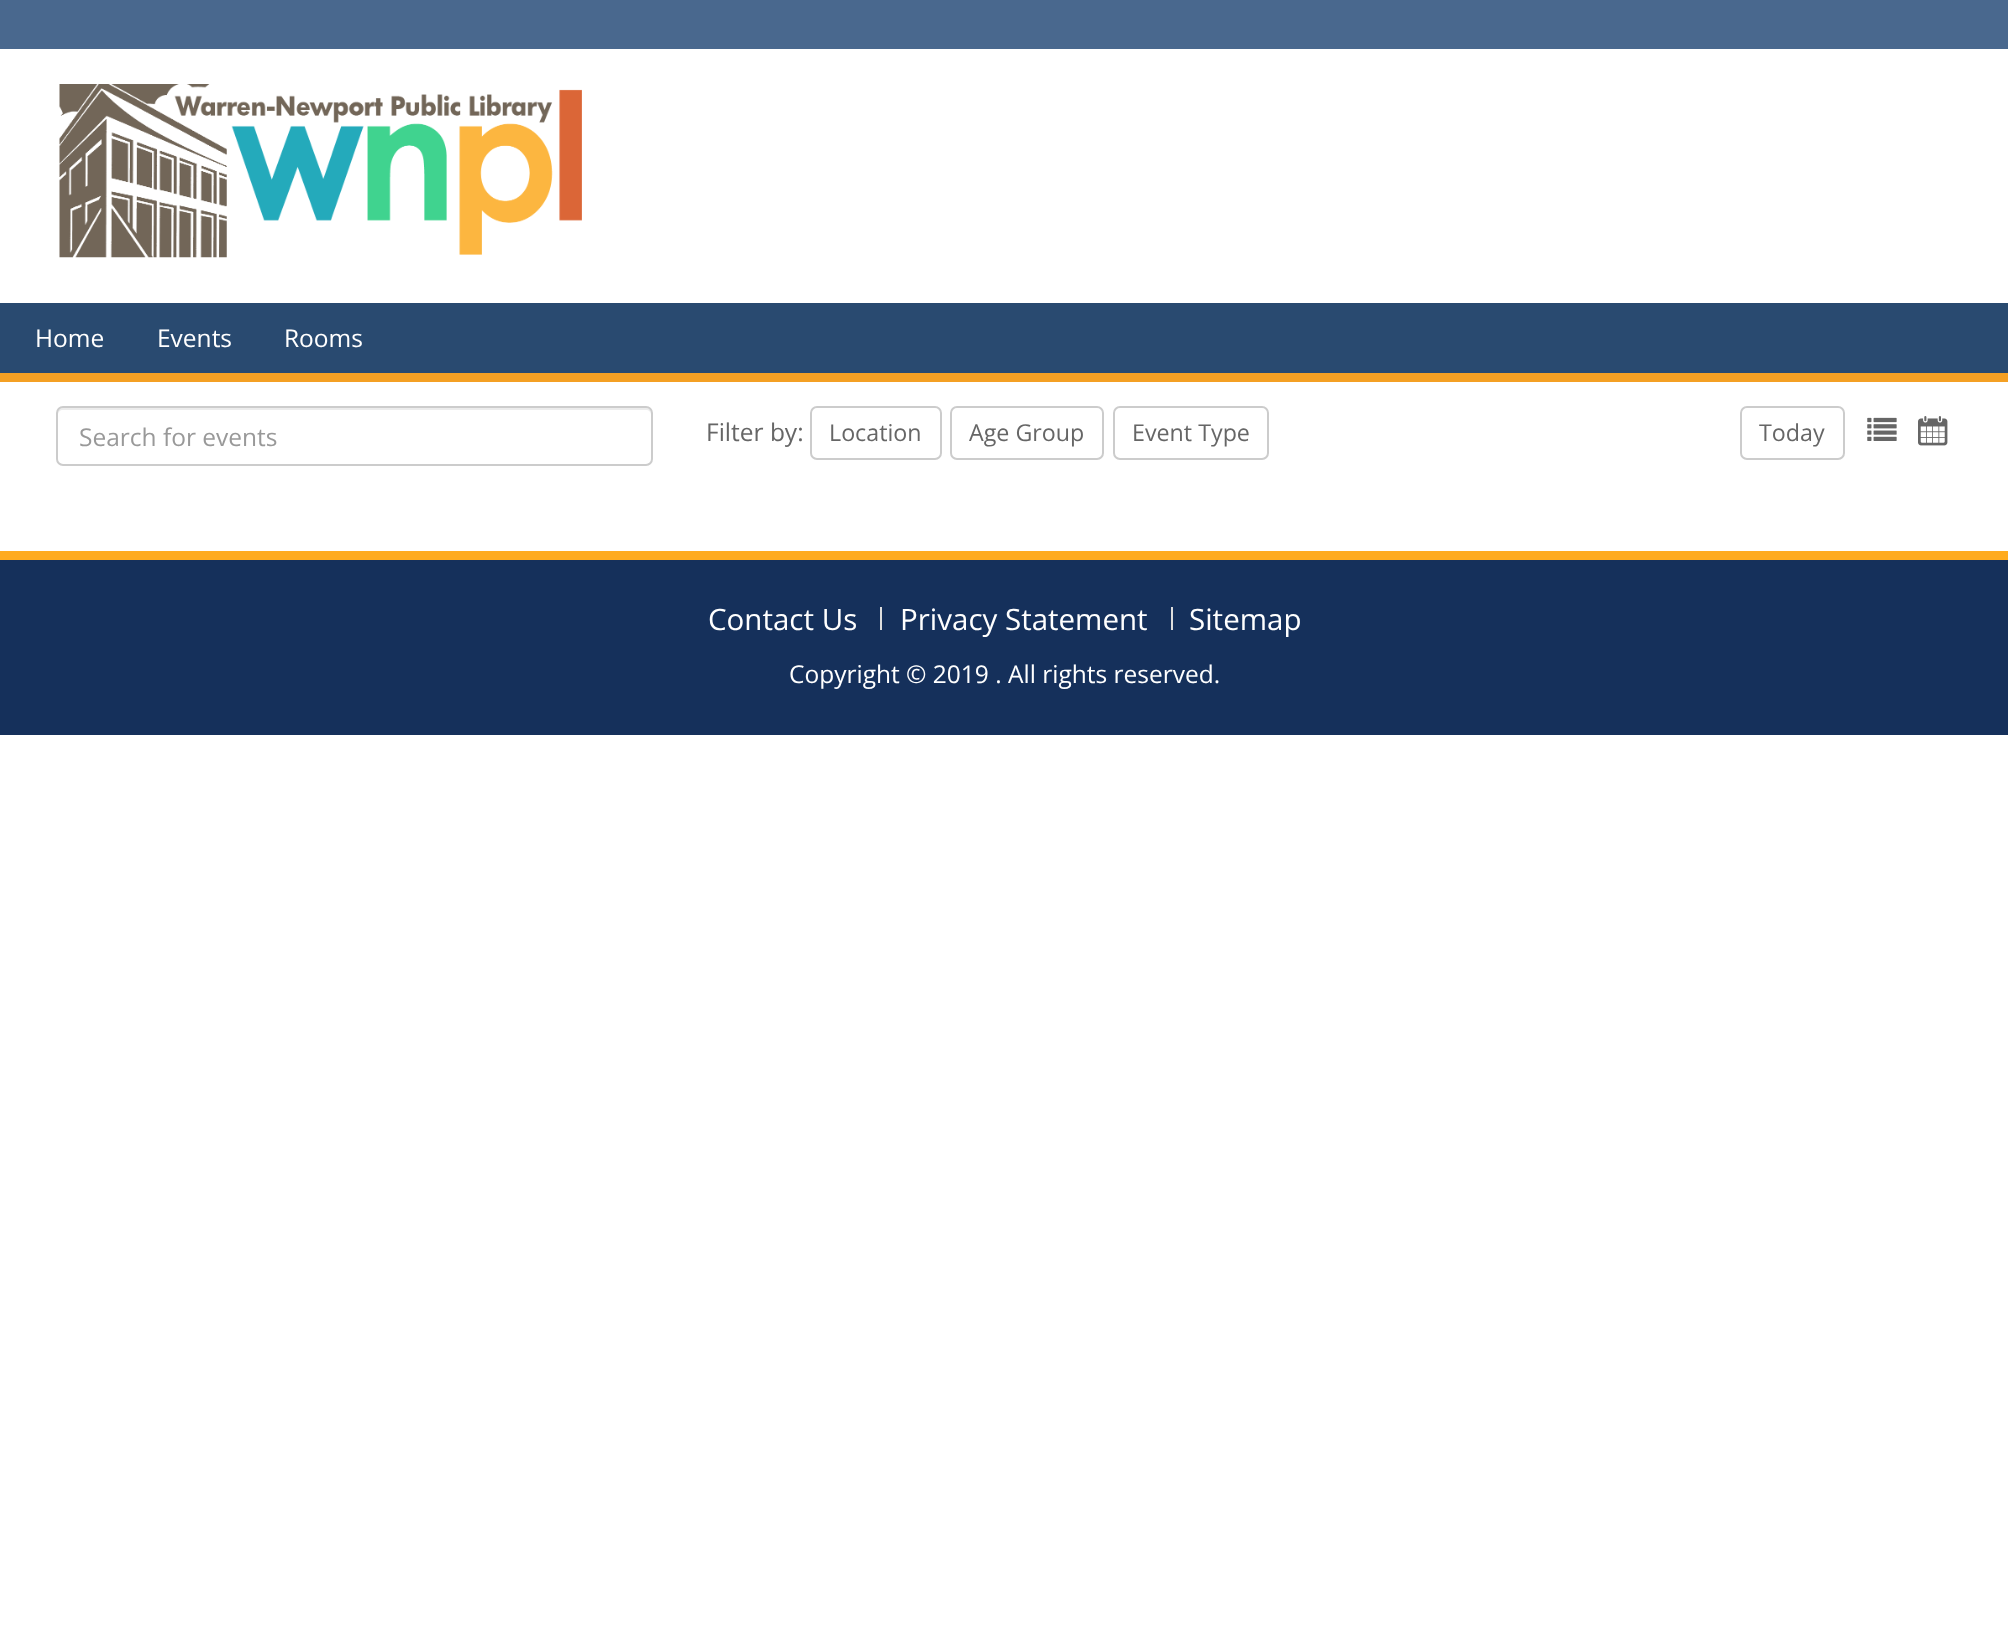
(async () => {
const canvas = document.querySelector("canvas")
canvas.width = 2008
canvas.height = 1640
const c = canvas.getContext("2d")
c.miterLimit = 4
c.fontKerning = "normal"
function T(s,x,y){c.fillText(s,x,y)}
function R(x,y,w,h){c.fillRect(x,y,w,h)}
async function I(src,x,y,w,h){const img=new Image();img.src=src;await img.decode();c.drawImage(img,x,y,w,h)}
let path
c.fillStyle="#fff"
R(0,0,2008,1640)
c.fillStyle="#49688e"
R(0,0,2008,49)
await I("1.png",59,84,523,174)
c.fillStyle="#294a70"
R(0,303,2008,70)
c.font="24.5px Open Sans"
c.fillStyle="#fff"
T("Home",35,347)
T("Events",157,347)
T("Rooms",284,347)
c.fillStyle="#f4a024"
R(0,373,2008,9)
c.fillStyle="#ececec"
path = new Path2D("M63 410h583c3 0 5 2 5 5v-2c0-3-2-5-5-5h-583c-3 0-5 2-5 5v2c0-3 2-5 5-5z")
c.fill(path)
c.beginPath()
c.roundRect(57,407,595,58,6)
c.strokeStyle="#ccc"
c.lineWidth=2
c.stroke()
c.fillStyle="#999"
T("Search for events",79,446)
c.fillStyle="#666"
T("Filter by:",706,441)
c.beginPath()
c.roundRect(811,407,130,52,6)
c.stroke()
c.font="23.25px Open Sans"
T("Location",829,441)
c.beginPath()
c.roundRect(951,407,152,52,6)
c.stroke()
T("Age Group",969,441)
c.beginPath()
c.roundRect(1114,407,154,52,6)
c.stroke()
T("Event Type",1132,441)
c.beginPath()
c.roundRect(1741,407,103,52,6)
c.stroke()
T("Today",1759,441)
await I("2.png",1867,417,30,24)
await I("3.png",1918,416,30,30)
c.fillStyle="#ffab1f"
R(0,551,2008,9)
c.fillStyle="#15305b"
R(0,560,2008,175)
c.font="29.5px Open Sans"
c.fillStyle="#fff"
T("Contact Us",708,630)
c.fillStyle="#ddd"
R(880,607,2,23)
c.fillStyle="#fff"
T("Privacy Statement",900,630)
c.fillStyle="#ddd"
R(1171,607,2,23)
c.fillStyle="#fff"
T("Sitemap",1189,630)
c.font="24.5px Open Sans"
T("Copyright © 2019 . All rights reserved.",789,683)
})()
